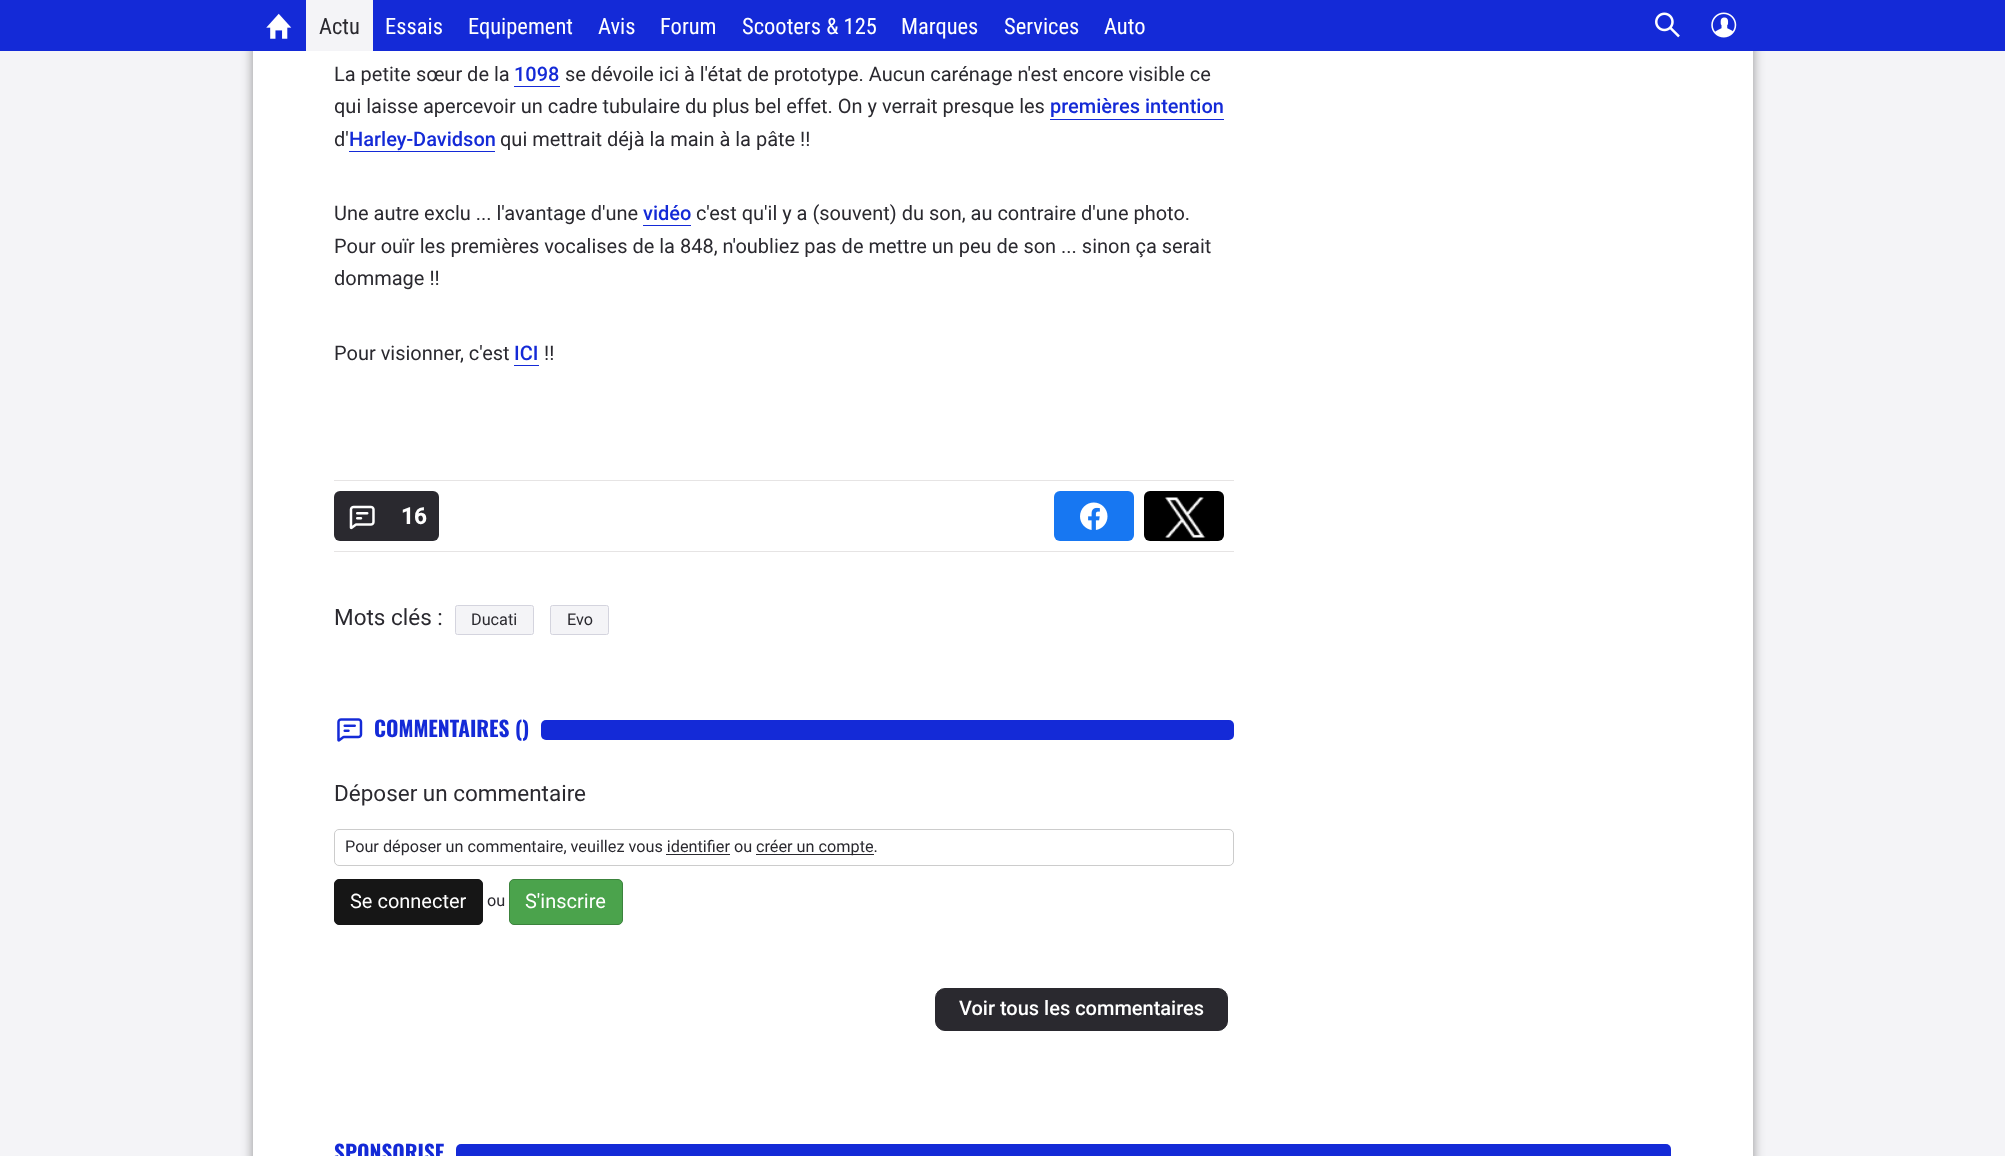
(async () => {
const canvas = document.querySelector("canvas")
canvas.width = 2005
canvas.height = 1156
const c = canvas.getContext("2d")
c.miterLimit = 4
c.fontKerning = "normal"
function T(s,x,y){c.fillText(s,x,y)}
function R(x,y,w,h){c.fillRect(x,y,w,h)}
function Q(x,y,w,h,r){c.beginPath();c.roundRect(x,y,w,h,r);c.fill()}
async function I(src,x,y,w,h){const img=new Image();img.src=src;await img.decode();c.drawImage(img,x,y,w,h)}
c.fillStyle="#f4f4f7"
R(0,0,2005,1156)
c.fillStyle="#00000066"
c.filter="blur(6px)"
c.beginPath()
c.rect(253,-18,1500,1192)
c.fill()
c.filter="none"
c.fillStyle="#142ad7"
R(0,0,2005,51)
await I("1.png",266,13,26,26)
c.fillStyle="#f4f4f7"
R(306,0,67,51)
c.font="22.5px Roboto Condensed"
c.fillStyle="#2a292f"
T("Actu",319,34)
c.fillStyle="#fff"
T("Essais",385,34)
T("Equipement",468,34)
T("Avis",598,34)
T("Forum",660,34)
T("Scooters & 125",742,34)
T("Marques",901,34)
T("Services",1004,34)
T("Auto",1104,34)
await I("2.png",1655,12,25,26)
await I("3.png",1711,12,26,26)
R(253,51,1500,1105)
c.font="20px Roboto"
c.fillStyle="#2a292f"
T("La petite sœur de la",334,81)
c.font="500 20px Roboto"
c.fillStyle="#142ad7"
T("1098",514,81)
R(514,86,46,1)
c.font="20px Roboto"
c.fillStyle="#2a292f"
T("se dévoile ici à l'état de prototype. Aucun carénage n'est encore visible ce",565,81)
T("qui laisse apercevoir un cadre tubulaire du plus bel effet. On y verrait presque les",334,113)
c.font="500 20px Roboto"
c.fillStyle="#142ad7"
T("premières intention",1050,113)
R(1050,119,174,1)
c.font="20px Roboto"
c.fillStyle="#2a292f"
T("d'",334,146)
c.font="500 20px Roboto"
c.fillStyle="#142ad7"
T("Harley-Davidson",349,146)
R(349,151,146,1)
c.font="20px Roboto"
c.fillStyle="#2a292f"
T("qui mettrait déjà la main à la pâte !!",500,146)
T("Une autre exclu ... l'avantage d'une",334,220)
c.font="500 20px Roboto"
c.fillStyle="#142ad7"
T("vidéo",643,220)
R(643,225,48,1)
c.font="20px Roboto"
c.fillStyle="#2a292f"
T("c'est qu'il y a (souvent) du son, au contraire d'une photo.",696,220)
T("Pour ouïr les premières vocalises de la 848, n'oubliez pas de mettre un peu de son ... sinon ça serait",334,253)
T("dommage !!",334,285)
T("Pour visionner, c'est",334,360)
c.font="500 20px Roboto"
c.fillStyle="#142ad7"
T("ICI",514,360)
R(514,365,25,1)
c.font="20px Roboto"
c.fillStyle="#2a292f"
T("!!",544,360)
c.fillStyle="#e6e4e4"
R(334,480,900,1)
R(334,551,900,1)
c.fillStyle="#2a292f"
Q(334,491,105,50,6)
await I("4.png",349,505,26,25)
c.font="bold 22.5px Roboto"
c.fillStyle="#fff"
T("16",401,524)
c.fillStyle="#1777f2"
Q(1054,491,80,50,6)
await I("5.png",1080,502,28,28)
c.fillStyle="#000"
Q(1144,491,80,50,6)
await I("6.png",1160,497,50,45)
c.font="22.5px Roboto"
c.fillStyle="#2a292f"
T("Mots clés :",334,625)
c.fillStyle="#f4f4f7"
c.beginPath()
c.roundRect(455.5,605.5,78,29,2)
c.fill()
c.strokeStyle="#d4d4de"
c.stroke()
c.font="16.25px Roboto"
c.fillStyle="#2a292f"
T("Ducati",471,625)
c.fillStyle="#f4f4f7"
c.beginPath()
c.roundRect(550.5,605.5,58,29,2)
c.fill()
c.stroke()
c.fillStyle="#2a292f"
T("Evo",567,625)
await I("7.png",337,718,26,24)
c.font="bold 21.25px Oswald"
c.fillStyle="#142ad7"
T("COMMENTAIRES ()",374,737)
Q(541,720,693,20,5)
c.font="22.5px Roboto"
c.fillStyle="#2a292f"
T("Déposer un commentaire",334,801)
c.beginPath()
c.roundRect(334.5,829.5,899,36,4.5)
c.strokeStyle="#ccc"
c.stroke()
c.font="16.25px Roboto"
T("Pour déposer un commentaire, veuillez vous identifier ou",345,852)
R(756,854,118,1)
T("créer un compte.",756,852)
R(666,854,64,1)
c.fillStyle="#161616"
c.beginPath()
c.roundRect(334.5,879.5,148,45,4.5)
c.fill()
c.strokeStyle="#161616"
c.stroke()
c.font="20px Roboto"
c.fillStyle="#fff"
T("Se connecter",350,908)
c.font="16.25px Roboto"
c.fillStyle="#2a292f"
T("ou",487,906)
c.fillStyle="#4ba34c"
c.beginPath()
c.roundRect(509.5,879.5,113,45,4.5)
c.fill()
c.strokeStyle="#3c833d"
c.stroke()
c.font="20px Roboto"
c.fillStyle="#fff"
T("S'inscrire",525,908)
c.fillStyle="#2a292f"
c.beginPath()
c.roundRect(935.5,988.5,292,42,9.5)
c.fill()
c.strokeStyle="#2a292f"
c.stroke()
c.font="500 20px 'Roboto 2'"
c.fillStyle="#fff"
T("Voir tous les commentaires",959,1015)
c.font="bold 21.25px Oswald"
c.fillStyle="#142ad7"
T("SPONSORISE",334,1161)
Q(456,1144,1215,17,5)
})()
